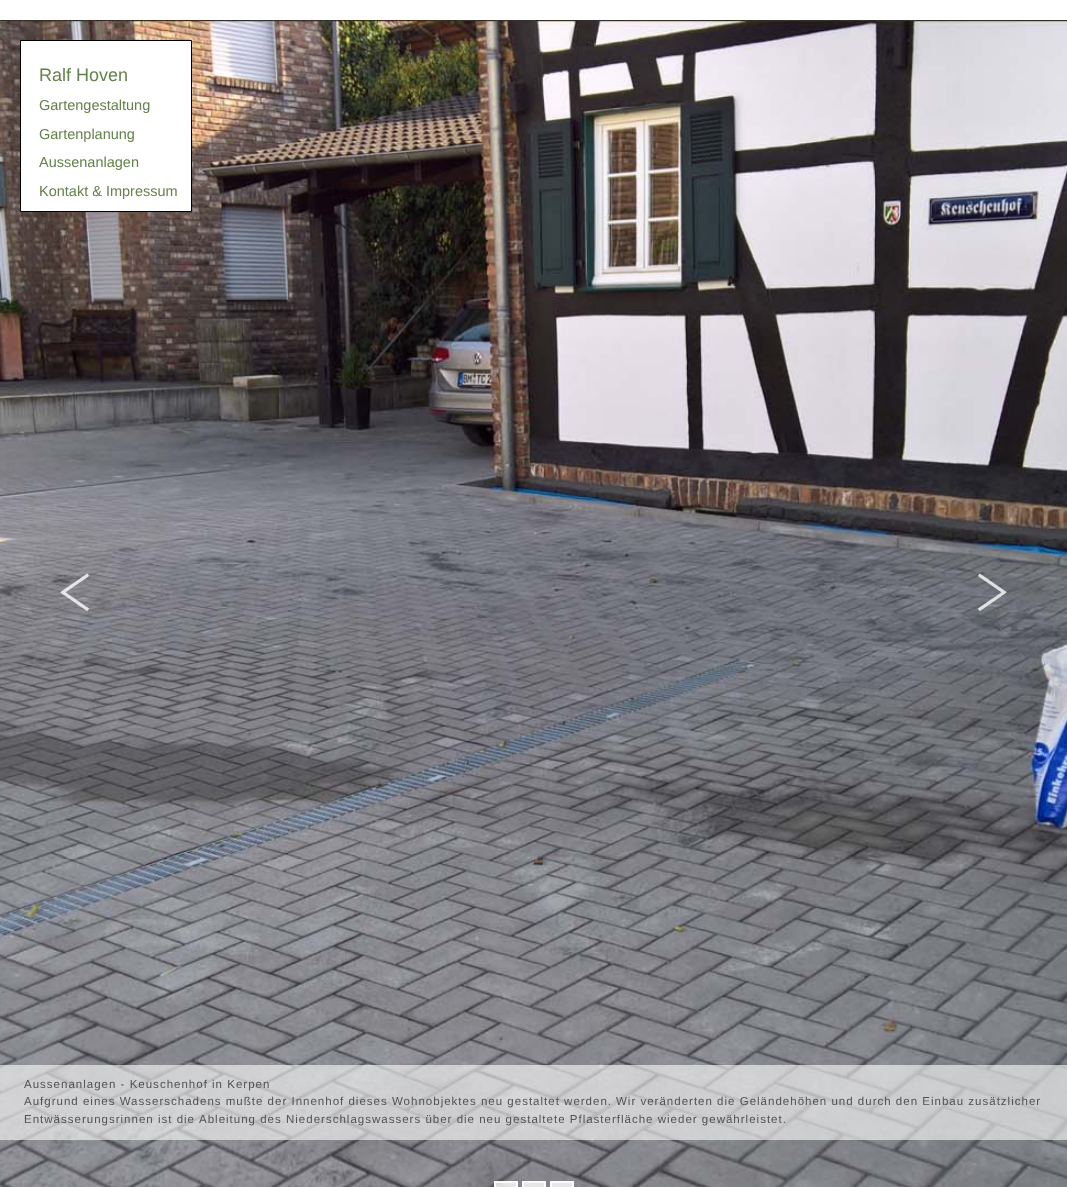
(async () => {
const canvas = document.querySelector("canvas")
canvas.width = 1067
canvas.height = 1187
const c = canvas.getContext("2d")
c.miterLimit = 4
c.fontKerning = "normal"
function T(s,x,y){c.fillText(s,x,y)}
function R(x,y,w,h){c.fillRect(x,y,w,h)}
async function I(src,x,y,w,h){const img=new Image();img.src=src;await img.decode();c.drawImage(img,x,y,w,h)}
c.fillStyle="#fff"
R(0,0,1067,1187)
await I("1.png",0,20,1067,1167)
await I("2.png",60,573,30,39)
await I("3.png",977,573,30,39)
c.fillStyle="#ffffffcc"
R(494,1181,24,6)
c.strokeStyle="#ffffffcc"
c.lineWidth=2
c.strokeRect(495,1182,22,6)
c.beginPath()
c.rect(523,1182,22,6)
c.fill()
c.strokeStyle="#fafafa"
c.stroke()
c.beginPath()
c.rect(551,1182,22,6)
c.fill()
c.stroke()
c.fillStyle="#fff"
c.beginPath()
c.rect(20.5,40.5,171,171)
c.fill()
c.strokeStyle="#000"
c.lineWidth=1
c.stroke()
c.font="18px Liberation Sans"
c.fillStyle="#64824b"
T("Ralf Hoven",39,81)
c.font="14.5px Liberation Sans"
T("Gartengestaltung",39,110)
T("Gartenplanung",39,139)
T("Aussenanlagen",39,167)
T("Kontakt & Impressum",39,196)
c.fillStyle="#ffffff99"
R(0,1065,1067,75)
c.letterSpacing="1px"
c.font="11.52px Liberation Sans"
c.fillStyle="#525253"
T("Aussenanlagen - Keuschenhof in Kerpen",24,1088)
T("Aufgrund eines Wasserschadens mußte der Innenhof dieses Wohnobjektes neu gestaltet werden.",24,1105)
T("Wir veränderten die Geländehöhen und durch den Einbau zusätzlicher",616,1105)
T("Entwässerungsrinnen ist die",24,1123)
T("Ableitung des Niederschlagswassers über die neu gestaltete Pflasterfläche wieder gewährleistet.",199,1123)
})()
